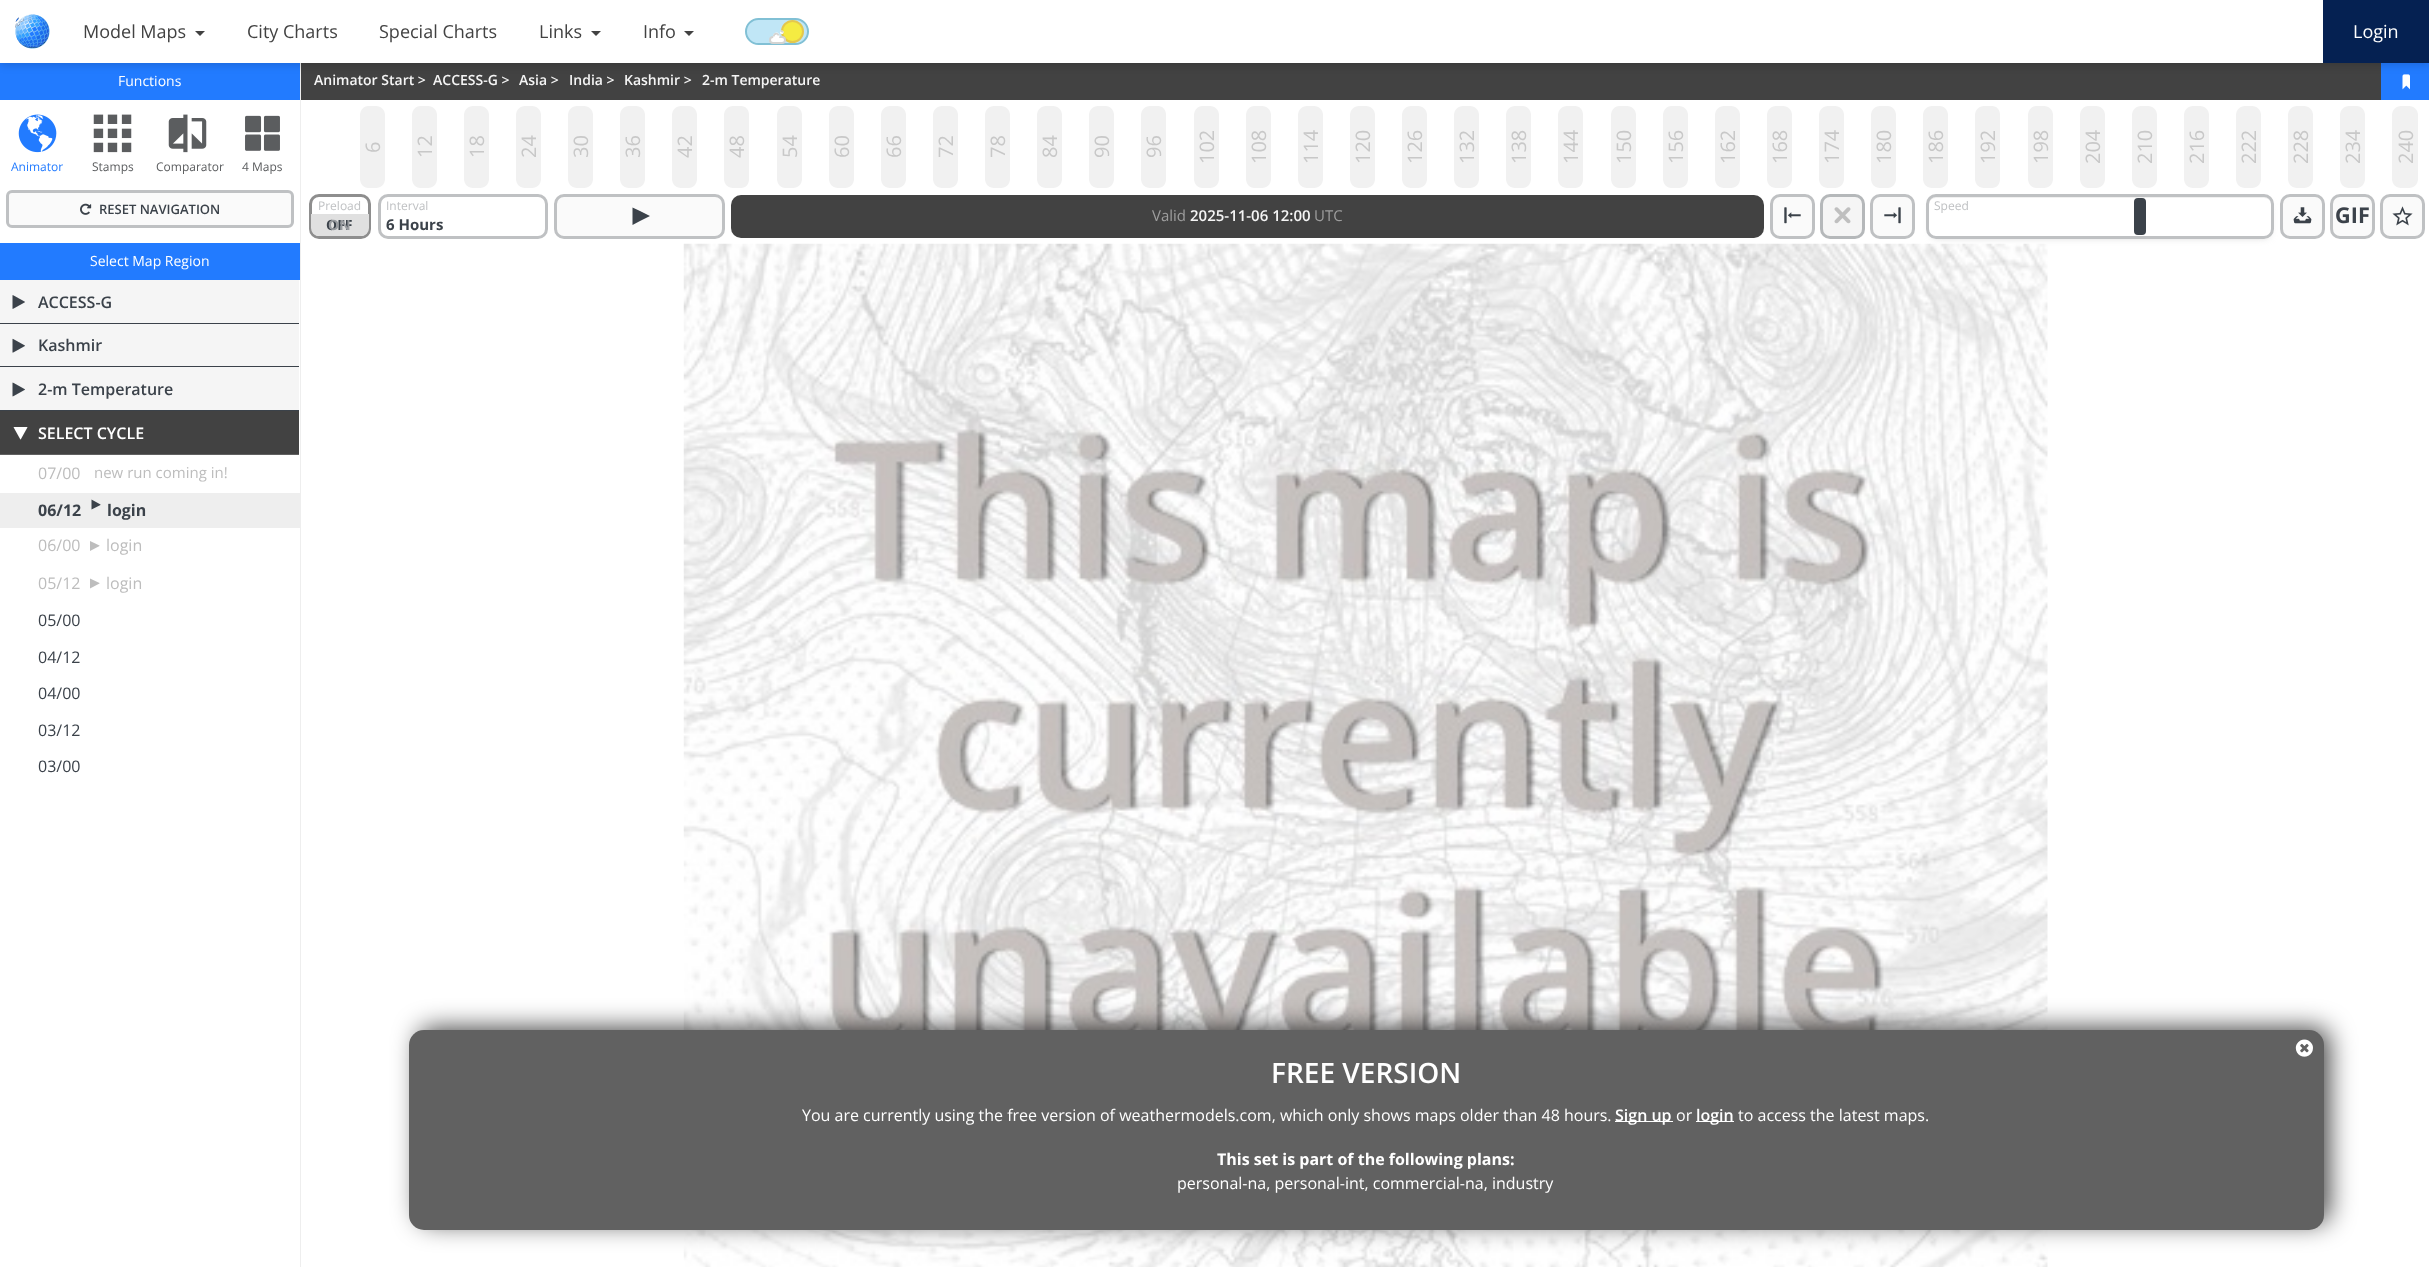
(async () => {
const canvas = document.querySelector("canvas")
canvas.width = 2429
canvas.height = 1267
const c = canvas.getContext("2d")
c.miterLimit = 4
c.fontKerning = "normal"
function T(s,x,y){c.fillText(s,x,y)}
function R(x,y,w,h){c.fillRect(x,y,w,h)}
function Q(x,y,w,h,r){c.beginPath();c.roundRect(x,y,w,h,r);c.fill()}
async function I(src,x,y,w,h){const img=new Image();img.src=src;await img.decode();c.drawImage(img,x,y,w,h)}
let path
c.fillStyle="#fff"
R(0,0,2429,1267)
c.fillStyle="#eee"
R(300,63,1,1204)
c.fillStyle="#227bff"
R(0,63,300,37)
R(2381,63,48,37)
await I("11.png",2402,74,8,16)
c.fillStyle="#424242"
R(301,63,2080,37)
c.fillStyle="#00000026"
c.filter="blur(4px)"
c.beginPath()
c.rect(0,3,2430,62)
c.fill()
c.filter="none"
c.fillStyle="#fff"
R(0,0,2323,63)
await I("1.png",15,14,35,35)
c.font="18px Open Sans"
c.fillStyle="#424242"
T("Model Maps",83,38)
path = new Path2D("M195 31h10l-5 5z")
c.fill(path)
T("City Charts",247,38)
T("Special Charts",379,38)
T("Links",539,38)
path = new Path2D("M591 31h10l-5 5z")
c.fill(path)
T("Info",643,38)
path = new Path2D("M684 31h10l-5 5z")
c.fill(path)
c.fillStyle="#c0e6f6"
c.beginPath()
c.roundRect(746,19,62,25,12.5)
c.fill()
c.strokeStyle="#81c0d5"
c.lineWidth=2
c.stroke()
c.fillStyle="#f5eb42"
c.beginPath()
c.arc(792.5,31.5,10.5,0,7)
c.fill()
c.strokeStyle="#e4c74d"
c.stroke()
c.fillStyle="#fff"
c.beginPath()
c.roundRect(770,37,15,6,3)
c.fill()
c.strokeStyle="#d4d4d2"
c.stroke()
path = new Path2D("M778 33c3.5 2.5 .5 8-3.5 6c-3.5-2-.5-8 3.5-6z")
c.fill(path)
path = new Path2D("M774 36.5c-1-3 4-4 4.5-1")
c.lineWidth=1.8
c.stroke(path)
path = new Path2D("M783.5 31.5c1 2.5-2.5 3.5-3.5 1.5c-.5-2.5 2.5-3.5 3.5-1.5z")
c.fill(path)
path = new Path2D("M781 32c.5-1 2-.5 1.5 .5")
c.stroke(path)
c.fillStyle="#052152"
R(2323,0,106,63)
c.fillStyle="#fff"
T("Login",2353,38)
c.font="14px Open Sans"
T("Functions",118,86)
await I("2.png",18,114,39,39)
c.font="12px Open Sans"
c.fillStyle="#227bff"
T("Animator",11,171)
await I("3.png",93,114,39,39)
c.fillStyle="#5b5d5f"
T("Stamps",92,171)
await I("4.png",168,114,39,39)
T("Comparator",156,171)
await I("5.png",245,115,35,36)
T("4 Maps",242,171)
c.fillStyle="#fafafa"
c.beginPath()
c.roundRect(7.5,191.5,285,35,4.5)
c.fill()
c.strokeStyle="#bfc1c3"
c.lineWidth=3
c.stroke()
await I("6.png",80,203,12,12)
c.font="600 13px Open Sans"
c.fillStyle="#3b424a"
T("RESET NAVIGATION",99,214)
c.fillStyle="#227bff"
R(0,243,300,37)
c.font="14px Open Sans"
c.fillStyle="#fff"
T("Select Map Region",90,266)
c.fillStyle="#f5f5f5"
R(0,280,299,43)
c.fillStyle="#3b424a"
R(0,323,299,1)
await I("7.png",12,295,13,14)
c.font="600 16px Open Sans"
T("ACCESS-G",38,308)
c.fillStyle="#f5f5f5"
R(0,324,299,86)
c.fillStyle="#3b424a"
R(0,366,299,1)
await I("8.png",12,338,13,15)
T("Kashmir",38,351)
R(0,410,299,1)
await I("9.png",12,382,13,15)
T("2-m Temperature",38,395)
c.fillStyle="#424242"
R(0,411,299,43)
c.fillStyle="#616161"
R(0,454,299,1)
await I("10.png",13,427,15,13)
c.fillStyle="#fff"
T("SELECT CYCLE",38,439)
c.font="16px Open Sans"
c.fillStyle="#bdbdbd"
T("07/00",38,479)
c.font="15px Open Sans"
T("new run coming in!",94,478)
c.fillStyle="#eee"
R(0,493,300,35)
c.font="bold 16px Open Sans"
c.fillStyle="#3b424a"
T("06/12",38,516)
path = new Path2D("M100.5 505l-9 4.5v-10l9 5z")
c.fill(path)
T("login",107,516)
c.font="16px Open Sans"
c.fillStyle="#bdbdbd"
T("06/00",38,551)
path = new Path2D("M99.5 546l-9.5 5v-10l9.5 4.5z")
c.fill(path)
T("login",106,551)
T("05/12",38,589)
path = new Path2D("M99.5 583.5l-9.5 5v-10l9.5 4.5z")
c.fill(path)
T("login",106,589)
c.fillStyle="#3b424a"
T("05/00",38,626)
T("04/12",38,663)
T("04/00",38,699)
T("03/12",38,736)
T("03/00",38,772)
c.font="600 14px Open Sans"
c.fillStyle="#f5f5f5"
T("Animator Start >",314,85)
T("ACCESS-G >",433,85)
T("Asia >",519,85)
T("India >",569,85)
T("Kashmir >",624,85)
T("2-m Temperature",702,85)
c.fillStyle="#f1f1f1"
path = new Path2D("M360 179v-64c0-5 4-9 8-9h8c5 0 9 4 9 9v64c0 5-4 9-9 9h-8c-4 0-8-4-8-9z")
c.fill(path)
c.font="20px Open Sans"
c.fillStyle="#c8c8c8"
c.save()
c.translate(380,153)
c.rotate(-90 * Math.PI / 180)
c.fillText("6",0,0)
c.restore()
c.fillStyle="#f1f1f1"
path = new Path2D("M412 179v-64c0-5 4-9 8-9h8c5 0 9 4 9 9v64c0 5-4 9-9 9h-8c-4 0-8-4-8-9z")
c.fill(path)
c.fillStyle="#c8c8c8"
c.save()
c.translate(432,158)
c.rotate(-90 * Math.PI / 180)
c.fillText("12",0,0)
c.restore()
c.fillStyle="#f1f1f1"
path = new Path2D("M464 179v-64c0-5 4-9 9-9h7c5 0 9 4 9 9v64c0 5-4 9-9 9h-7c-5 0-9-4-9-9z")
c.fill(path)
c.fillStyle="#c8c8c8"
c.save()
c.translate(484,158)
c.rotate(-90 * Math.PI / 180)
c.fillText("18",0,0)
c.restore()
c.fillStyle="#f1f1f1"
path = new Path2D("M516 179v-64c0-5 4-9 9-9h7c5 0 9 4 9 9v64c0 5-4 9-9 9h-7c-5 0-9-4-9-9z")
c.fill(path)
c.fillStyle="#c8c8c8"
c.save()
c.translate(536,158)
c.rotate(-90 * Math.PI / 180)
c.fillText("24",0,0)
c.restore()
c.fillStyle="#f1f1f1"
path = new Path2D("M568 179v-64c0-5 4-9 9-9h7c5 0 9 4 9 9v64c0 5-4 9-9 9h-7c-5 0-9-4-9-9z")
c.fill(path)
c.fillStyle="#c8c8c8"
c.save()
c.translate(588,158)
c.rotate(-90 * Math.PI / 180)
c.fillText("30",0,0)
c.restore()
c.fillStyle="#f1f1f1"
path = new Path2D("M620 179v-64c0-5 4-9 9-9h7c5 0 9 4 9 9v64c0 5-4 9-9 9h-7c-5 0-9-4-9-9z")
c.fill(path)
c.fillStyle="#c8c8c8"
c.save()
c.translate(640,158)
c.rotate(-90 * Math.PI / 180)
c.fillText("36",0,0)
c.restore()
c.fillStyle="#f1f1f1"
path = new Path2D("M672 179v-64c0-5 4-9 9-9h8c4 0 8 4 8 9v64c0 5-4 9-8 9h-8c-5 0-9-4-9-9z")
c.fill(path)
c.fillStyle="#c8c8c8"
c.save()
c.translate(692,158)
c.rotate(-90 * Math.PI / 180)
c.fillText("42",0,0)
c.restore()
c.fillStyle="#f1f1f1"
path = new Path2D("M724 179v-64c0-5 4-9 9-9h8c5 0 8 4 8 9v64c0 5-3 9-8 9h-8c-5 0-9-4-9-9z")
c.fill(path)
c.fillStyle="#c8c8c8"
c.save()
c.translate(744,158)
c.rotate(-90 * Math.PI / 180)
c.fillText("48",0,0)
c.restore()
c.fillStyle="#f1f1f1"
path = new Path2D("M777 179v-64c0-5 4-9 8-9h8c5 0 9 4 9 9v64c0 5-4 9-9 9h-8c-4 0-8-4-8-9z")
c.fill(path)
c.fillStyle="#c8c8c8"
c.save()
c.translate(797,158)
c.rotate(-90 * Math.PI / 180)
c.fillText("54",0,0)
c.restore()
c.fillStyle="#f1f1f1"
path = new Path2D("M829 179v-64c0-5 4-9 9-9h7c5 0 9 4 9 9v64c0 5-4 9-9 9h-7c-5 0-9-4-9-9z")
c.fill(path)
c.fillStyle="#c8c8c8"
c.save()
c.translate(849,158)
c.rotate(-90 * Math.PI / 180)
c.fillText("60",0,0)
c.restore()
c.fillStyle="#f1f1f1"
path = new Path2D("M881 179v-64c0-5 4-9 9-9h7c5 0 9 4 9 9v64c0 5-4 9-9 9h-7c-5 0-9-4-9-9z")
c.fill(path)
c.fillStyle="#c8c8c8"
c.save()
c.translate(901,158)
c.rotate(-90 * Math.PI / 180)
c.fillText("66",0,0)
c.restore()
c.fillStyle="#f1f1f1"
path = new Path2D("M933 179v-64c0-5 4-9 9-9h7c5 0 9 4 9 9v64c0 5-4 9-9 9h-7c-5 0-9-4-9-9z")
c.fill(path)
c.fillStyle="#c8c8c8"
c.save()
c.translate(953,158)
c.rotate(-90 * Math.PI / 180)
c.fillText("72",0,0)
c.restore()
c.fillStyle="#f1f1f1"
path = new Path2D("M985 179v-64c0-5 4-9 9-9h7c5 0 9 4 9 9v64c0 5-4 9-9 9h-7c-5 0-9-4-9-9z")
c.fill(path)
c.fillStyle="#c8c8c8"
c.save()
c.translate(1005,158)
c.rotate(-90 * Math.PI / 180)
c.fillText("78",0,0)
c.restore()
c.fillStyle="#f1f1f1"
path = new Path2D("M1037 179v-64c0-5 4-9 9-9h7c5 0 9 4 9 9v64c0 5-4 9-9 9h-7c-5 0-9-4-9-9z")
c.fill(path)
c.fillStyle="#c8c8c8"
c.save()
c.translate(1057,158)
c.rotate(-90 * Math.PI / 180)
c.fillText("84",0,0)
c.restore()
c.fillStyle="#f1f1f1"
path = new Path2D("M1089 179v-64c0-5 4-9 9-9h8c4 0 8 4 8 9v64c0 5-4 9-8 9h-8c-5 0-9-4-9-9z")
c.fill(path)
c.fillStyle="#c8c8c8"
c.save()
c.translate(1109,158)
c.rotate(-90 * Math.PI / 180)
c.fillText("90",0,0)
c.restore()
c.fillStyle="#f1f1f1"
path = new Path2D("M1141 179v-64c0-5 4-9 9-9h8c5 0 8 4 8 9v64c0 5-3 9-8 9h-8c-5 0-9-4-9-9z")
c.fill(path)
c.fillStyle="#c8c8c8"
c.save()
c.translate(1161,158)
c.rotate(-90 * Math.PI / 180)
c.fillText("96",0,0)
c.restore()
c.fillStyle="#f1f1f1"
path = new Path2D("M1194 179v-64c0-5 4-9 8-9h8c5 0 9 4 9 9v64c0 5-4 9-9 9h-8c-4 0-8-4-8-9z")
c.fill(path)
c.fillStyle="#c8c8c8"
c.save()
c.translate(1214,164)
c.rotate(-90 * Math.PI / 180)
c.fillText("102",0,0)
c.restore()
c.fillStyle="#f1f1f1"
path = new Path2D("M1246 179v-64c0-5 4-9 8-9h8c5 0 9 4 9 9v64c0 5-4 9-9 9h-8c-4 0-8-4-8-9z")
c.fill(path)
c.fillStyle="#c8c8c8"
c.save()
c.translate(1266,164)
c.rotate(-90 * Math.PI / 180)
c.fillText("108",0,0)
c.restore()
c.fillStyle="#f1f1f1"
path = new Path2D("M1298 179v-64c0-5 4-9 9-9h7c5 0 9 4 9 9v64c0 5-4 9-9 9h-7c-5 0-9-4-9-9z")
c.fill(path)
c.fillStyle="#c8c8c8"
c.save()
c.translate(1318,164)
c.rotate(-90 * Math.PI / 180)
c.fillText("114",0,0)
c.restore()
c.fillStyle="#f1f1f1"
path = new Path2D("M1350 179v-64c0-5 4-9 9-9h7c5 0 9 4 9 9v64c0 5-4 9-9 9h-7c-5 0-9-4-9-9z")
c.fill(path)
c.fillStyle="#c8c8c8"
c.save()
c.translate(1370,164)
c.rotate(-90 * Math.PI / 180)
c.fillText("120",0,0)
c.restore()
c.fillStyle="#f1f1f1"
path = new Path2D("M1402 179v-64c0-5 4-9 9-9h7c5 0 9 4 9 9v64c0 5-4 9-9 9h-7c-5 0-9-4-9-9z")
c.fill(path)
c.fillStyle="#c8c8c8"
c.save()
c.translate(1422,164)
c.rotate(-90 * Math.PI / 180)
c.fillText("126",0,0)
c.restore()
c.fillStyle="#f1f1f1"
path = new Path2D("M1454 179v-64c0-5 4-9 9-9h7c5 0 9 4 9 9v64c0 5-4 9-9 9h-7c-5 0-9-4-9-9z")
c.fill(path)
c.fillStyle="#c8c8c8"
c.save()
c.translate(1474,164)
c.rotate(-90 * Math.PI / 180)
c.fillText("132",0,0)
c.restore()
c.fillStyle="#f1f1f1"
path = new Path2D("M1506 179v-64c0-5 4-9 9-9h8c4 0 8 4 8 9v64c0 5-4 9-8 9h-8c-5 0-9-4-9-9z")
c.fill(path)
c.fillStyle="#c8c8c8"
c.save()
c.translate(1526,164)
c.rotate(-90 * Math.PI / 180)
c.fillText("138",0,0)
c.restore()
c.fillStyle="#f1f1f1"
path = new Path2D("M1558 179v-64c0-5 4-9 9-9h8c5 0 8 4 8 9v64c0 5-3 9-8 9h-8c-5 0-9-4-9-9z")
c.fill(path)
c.fillStyle="#c8c8c8"
c.save()
c.translate(1578,164)
c.rotate(-90 * Math.PI / 180)
c.fillText("144",0,0)
c.restore()
c.fillStyle="#f1f1f1"
path = new Path2D("M1611 179v-64c0-5 4-9 8-9h8c5 0 9 4 9 9v64c0 5-4 9-9 9h-8c-4 0-8-4-8-9z")
c.fill(path)
c.fillStyle="#c8c8c8"
c.save()
c.translate(1631,164)
c.rotate(-90 * Math.PI / 180)
c.fillText("150",0,0)
c.restore()
c.fillStyle="#f1f1f1"
path = new Path2D("M1663 179v-64c0-5 4-9 8-9h8c5 0 9 4 9 9v64c0 5-4 9-9 9h-8c-4 0-8-4-8-9z")
c.fill(path)
c.fillStyle="#c8c8c8"
c.save()
c.translate(1683,164)
c.rotate(-90 * Math.PI / 180)
c.fillText("156",0,0)
c.restore()
c.fillStyle="#f1f1f1"
path = new Path2D("M1715 179v-64c0-5 4-9 9-9h7c5 0 9 4 9 9v64c0 5-4 9-9 9h-7c-5 0-9-4-9-9z")
c.fill(path)
c.fillStyle="#c8c8c8"
c.save()
c.translate(1735,164)
c.rotate(-90 * Math.PI / 180)
c.fillText("162",0,0)
c.restore()
c.fillStyle="#f1f1f1"
path = new Path2D("M1767 179v-64c0-5 4-9 9-9h7c5 0 9 4 9 9v64c0 5-4 9-9 9h-7c-5 0-9-4-9-9z")
c.fill(path)
c.fillStyle="#c8c8c8"
c.save()
c.translate(1787,164)
c.rotate(-90 * Math.PI / 180)
c.fillText("168",0,0)
c.restore()
c.fillStyle="#f1f1f1"
path = new Path2D("M1819 179v-64c0-5 4-9 9-9h7c5 0 9 4 9 9v64c0 5-4 9-9 9h-7c-5 0-9-4-9-9z")
c.fill(path)
c.fillStyle="#c8c8c8"
c.save()
c.translate(1839,164)
c.rotate(-90 * Math.PI / 180)
c.fillText("174",0,0)
c.restore()
c.fillStyle="#f1f1f1"
path = new Path2D("M1871 179v-64c0-5 4-9 9-9h8c4 0 8 4 8 9v64c0 5-4 9-8 9h-8c-5 0-9-4-9-9z")
c.fill(path)
c.fillStyle="#c8c8c8"
c.save()
c.translate(1891,164)
c.rotate(-90 * Math.PI / 180)
c.fillText("180",0,0)
c.restore()
c.fillStyle="#f1f1f1"
path = new Path2D("M1923 179v-64c0-5 4-9 9-9h8c4 0 8 4 8 9v64c0 5-4 9-8 9h-8c-5 0-9-4-9-9z")
c.fill(path)
c.fillStyle="#c8c8c8"
c.save()
c.translate(1943,164)
c.rotate(-90 * Math.PI / 180)
c.fillText("186",0,0)
c.restore()
c.fillStyle="#f1f1f1"
path = new Path2D("M1975 179v-64c0-5 4-9 9-9h8c5 0 8 4 8 9v64c0 5-3 9-8 9h-8c-5 0-9-4-9-9z")
c.fill(path)
c.fillStyle="#c8c8c8"
c.save()
c.translate(1995,164)
c.rotate(-90 * Math.PI / 180)
c.fillText("192",0,0)
c.restore()
c.fillStyle="#f1f1f1"
path = new Path2D("M2028 179v-64c0-5 4-9 8-9h8c5 0 9 4 9 9v64c0 5-4 9-9 9h-8c-4 0-8-4-8-9z")
c.fill(path)
c.fillStyle="#c8c8c8"
c.save()
c.translate(2048,164)
c.rotate(-90 * Math.PI / 180)
c.fillText("198",0,0)
c.restore()
c.fillStyle="#f1f1f1"
path = new Path2D("M2080 179v-64c0-5 4-9 8-9h8c5 0 9 4 9 9v64c0 5-4 9-9 9h-8c-4 0-8-4-8-9z")
c.fill(path)
c.fillStyle="#c8c8c8"
c.save()
c.translate(2100,164)
c.rotate(-90 * Math.PI / 180)
c.fillText("204",0,0)
c.restore()
c.fillStyle="#f1f1f1"
path = new Path2D("M2132 179v-64c0-5 4-9 9-9h7c5 0 9 4 9 9v64c0 5-4 9-9 9h-7c-5 0-9-4-9-9z")
c.fill(path)
c.fillStyle="#c8c8c8"
c.save()
c.translate(2152,164)
c.rotate(-90 * Math.PI / 180)
c.fillText("210",0,0)
c.restore()
c.fillStyle="#f1f1f1"
path = new Path2D("M2184 179v-64c0-5 4-9 9-9h7c5 0 9 4 9 9v64c0 5-4 9-9 9h-7c-5 0-9-4-9-9z")
c.fill(path)
c.fillStyle="#c8c8c8"
c.save()
c.translate(2204,164)
c.rotate(-90 * Math.PI / 180)
c.fillText("216",0,0)
c.restore()
c.fillStyle="#f1f1f1"
path = new Path2D("M2236 179v-64c0-5 4-9 9-9h7c5 0 9 4 9 9v64c0 5-4 9-9 9h-7c-5 0-9-4-9-9z")
c.fill(path)
c.fillStyle="#c8c8c8"
c.save()
c.translate(2256,164)
c.rotate(-90 * Math.PI / 180)
c.fillText("222",0,0)
c.restore()
c.fillStyle="#f1f1f1"
path = new Path2D("M2288 179v-64c0-5 4-9 9-9h7c5 0 9 4 9 9v64c0 5-4 9-9 9h-7c-5 0-9-4-9-9z")
c.fill(path)
c.fillStyle="#c8c8c8"
c.save()
c.translate(2308,164)
c.rotate(-90 * Math.PI / 180)
c.fillText("228",0,0)
c.restore()
c.fillStyle="#f1f1f1"
path = new Path2D("M2340 179v-64c0-5 4-9 9-9h8c4 0 8 4 8 9v64c0 5-4 9-8 9h-8c-5 0-9-4-9-9z")
c.fill(path)
c.fillStyle="#c8c8c8"
c.save()
c.translate(2360,164)
c.rotate(-90 * Math.PI / 180)
c.fillText("234",0,0)
c.restore()
c.fillStyle="#f1f1f1"
path = new Path2D("M2392 179v-64c0-5 4-9 9-9h8c5 0 9 4 9 9v64c0 5-4 9-9 9h-8c-5 0-9-4-9-9z")
c.fill(path)
c.fillStyle="#c8c8c8"
c.save()
c.translate(2413,164)
c.rotate(-90 * Math.PI / 180)
c.fillText("240",0,0)
c.restore()
c.beginPath()
c.roundRect(310.5,195.5,59,42,8.5)
c.strokeStyle="#8e8e8e"
c.stroke()
c.font="12px Open Sans"
c.fillStyle="#bfc1c3"
T("Preload",318,210)
c.fillStyle="#e0e0e0"
c.beginPath()
c.roundRect(311,214,58,22,[0,0,8,8])
c.fill()
c.font="bold 14px Open Sans"
c.fillStyle="#3b424a"
T("OFF",326,230)
c.fillStyle="#989b9f"
T("ON",328,230)
c.beginPath()
c.roundRect(379.5,195.5,167,42,8.5)
c.strokeStyle="#bfc1c3"
c.stroke()
c.font="12px Open Sans"
c.fillStyle="#bfc1c3"
T("Interval",386,210)
c.font="bold 15px Open Sans"
c.fillStyle="#3b424a"
T("6 Hours",386,230)
c.fillStyle="#fafafa"
c.beginPath()
c.roundRect(555.5,195.5,168,42,8.5)
c.fill()
c.stroke()
c.fillStyle="#3b424a"
path = new Path2D("M632.5 225v-17.5l7.5 3.5v10zm7.5-4v-10l10 5z")
c.fill(path)
c.fillStyle="#fafafa"
c.beginPath()
c.roundRect(1771.5,195.5,42,42,8.5)
c.fill()
c.stroke()
await I("12.png",1784,207,17,17)
c.fillStyle="#f5f5f5"
c.beginPath()
c.roundRect(1821.5,195.5,42,42,8.5)
c.fill()
c.strokeStyle="#b5b8ba"
c.stroke()
await I("13.png",1834,207,17,17)
c.fillStyle="#fafafa"
c.beginPath()
c.roundRect(1871.5,195.5,42,42,8.5)
c.fill()
c.strokeStyle="#bfc1c3"
c.stroke()
await I("14.png",1884,207,17,17)
c.save()
path = new Path2D("M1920 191h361v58h-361zm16 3h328c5.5 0 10 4.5 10 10v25c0 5.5-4.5 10-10 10h-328c-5.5 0-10-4.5-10-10v-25c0-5.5 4.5-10 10-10z")
c.clip(path,"evenodd")
c.fillStyle="#bbb"
c.filter="blur(4px)"
c.beginPath()
c.roundRect(1933,204,335,32,4)
c.fill()
c.filter="none"
c.restore()
c.font="12px Open Sans"
c.fillStyle="#bfc1c3"
T("Speed",1934,210)
c.fillStyle="#f0f0f0"
path = new Path2D("M1936 198h328c4 0 7 3 7 7v-1c0-4-4-8-8-8h-326c-4 0-8 4-8 8v1c0-4 3-7 7-7z")
c.fill(path)
c.beginPath()
c.roundRect(1927.5,195.5,345,42,8.5)
c.stroke()
c.fillStyle="#3b424a"
Q(2134,198,12,37,4)
c.fillStyle="#fafafa"
c.beginPath()
c.roundRect(2281.5,195.5,42,42,8.5)
c.fill()
c.stroke()
await I("15.png",2293,207,19,17)
c.beginPath()
c.roundRect(2331.5,195.5,42,42,8.5)
c.fill()
c.stroke()
await I("16.png",2336,207,33,17)
c.beginPath()
c.roundRect(2381.5,195.5,42,42,8.5)
c.fill()
c.stroke()
await I("17.png",2392,206,21,20)
c.fillStyle="#424242"
Q(731,195,1033,43,10)
c.font="15px Open Sans"
c.fillStyle="#9e9e9e"
T("Valid",1152,221)
c.font="600 15px Open Sans"
c.fillStyle="#f5f5f5"
T("2025-11-06 12:00",1190,221)
c.font="15px Open Sans"
c.fillStyle="#9e9e9e"
T("UTC",1314,221)
await I("18.png",683,243,1365,1024)
c.fillStyle="#000000bf"
c.filter="blur(13px)"
c.beginPath()
c.roundRect(419,1028,1910,195,13)
c.fill()
c.filter="none"
c.fillStyle="#616161"
Q(409,1030,1915,200,15)
await I("19.png",2295,1039,18,18)
c.font="600 28px Open Sans"
c.fillStyle="#fff"
T("FREE VERSION",1271,1083)
c.font="16px Open Sans"
T("You are currently using the free version of weathermodels.com, which only shows maps older than 48 hours.",802,1121)
R(1615,1121,58,1)
c.font="600 16px Open Sans"
T("Sign up",1615,1121)
c.font="16px Open Sans"
T("or",1676,1121)
R(1696,1121,38,1)
c.font="600 16px Open Sans"
T("login",1696,1121)
c.font="16px Open Sans"
T("to access the latest maps.",1738,1121)
c.font="bold 16px Open Sans"
T("This set is part of the following plans:",1217,1165)
c.font="16px Open Sans"
T("personal-na, personal-int, commercial-na, industry",1177,1189)
})()
